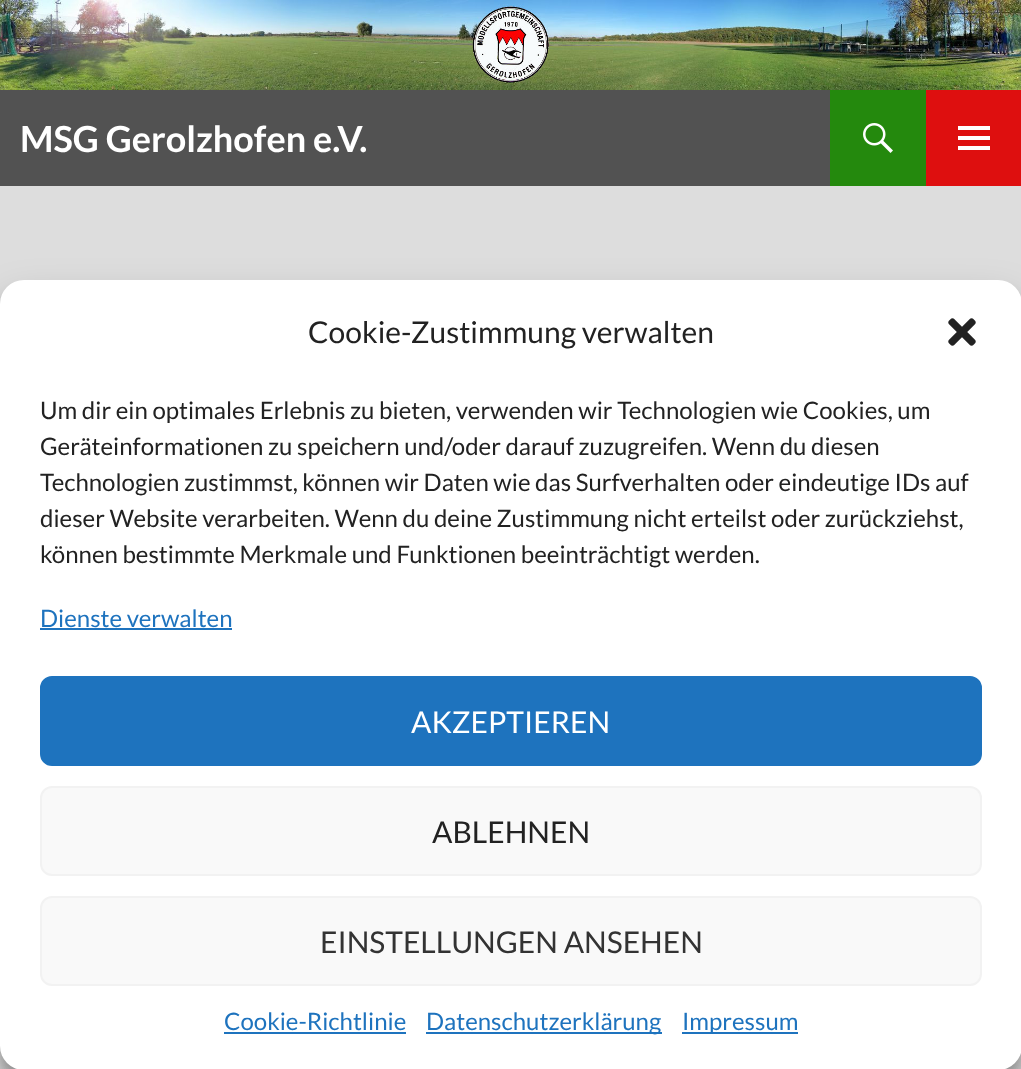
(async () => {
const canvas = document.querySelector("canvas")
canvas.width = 1021
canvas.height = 1069
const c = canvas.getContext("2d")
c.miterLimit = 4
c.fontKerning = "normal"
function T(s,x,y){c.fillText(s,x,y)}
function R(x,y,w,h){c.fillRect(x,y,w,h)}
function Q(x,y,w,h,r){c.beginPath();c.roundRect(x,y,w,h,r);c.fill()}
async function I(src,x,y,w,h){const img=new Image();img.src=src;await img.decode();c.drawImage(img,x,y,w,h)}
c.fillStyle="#ddd"
R(0,0,1021,1069)
await I("1.png",0,0,1021,90)
c.fillStyle="#525252"
R(0,90,830,96)
c.font="bold 36px Lato"
c.fillStyle="#fff"
T("MSG Gerolzhofen e.V.",20,152)
c.fillStyle="#24890d"
R(830,90,96,96)
await I("2.png",863,123,30,30)
c.fillStyle="#de0f0f"
R(926,90,95,96)
await I("3.png",958,126,32,24)
c.fillStyle="#0000003b"
c.filter="blur(6px)"
c.beginPath()
c.roundRect(0,292,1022,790,24)
c.fill()
c.filter="none"
c.fillStyle="#00000030"
c.filter="blur(20px)"
c.beginPath()
c.roundRect(0,300,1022,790,24)
c.fill()
c.filter="none"
c.fillStyle="#fff"
Q(0,280,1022,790,24)
c.font="30px Lato"
c.fillStyle="#222"
T("Cookie-Zustimmung verwalten",308,343)
await I("4.png",948,318,28,28)
c.font="24px Lato"
T("Um dir ein optimales Erlebnis zu bieten, verwenden wir Technologien wie Cookies, um",40,419)
T("Geräteinformationen zu speichern und/oder darauf zuzugreifen. Wenn du diesen",40,455)
T("Technologien zustimmst, können wir Daten wie das Surfverhalten oder eindeutige IDs auf",40,491)
T("dieser Website verarbeiten. Wenn du deine Zustimmung nicht erteilst oder zurückziehst,",40,527)
T("können bestimmte Merkmale und Funktionen beeinträchtigt werden.",40,563)
c.fillStyle="#1e73be"
T("Dienste verwalten",40,627)
R(40,628,192,2)
c.beginPath()
c.roundRect(41,677,940,88,11)
c.fill()
c.strokeStyle="#1e73be"
c.lineWidth=2
c.stroke()
c.font="30px Lato"
c.fillStyle="#fff"
T("AKZEPTIEREN",411,733)
c.fillStyle="#f9f9f9"
c.beginPath()
c.roundRect(41,787,940,88,11)
c.fill()
c.strokeStyle="#f2f2f2"
c.stroke()
c.fillStyle="#222"
T("ABLEHNEN",432,843)
c.fillStyle="#f9f9f9"
c.beginPath()
c.roundRect(41,897,940,88,11)
c.fill()
c.stroke()
c.fillStyle="#333"
T("EINSTELLUNGEN ANSEHEN",320,953)
c.font="24px Lato"
c.fillStyle="#1e73be"
T("Cookie-Richtlinie",224,1030)
R(224,1032,182,2)
R(426,1032,236,2)
T("Datenschutzerklärung",426,1030)
R(682,1032,116,2)
T("Impressum",682,1030)
})()
